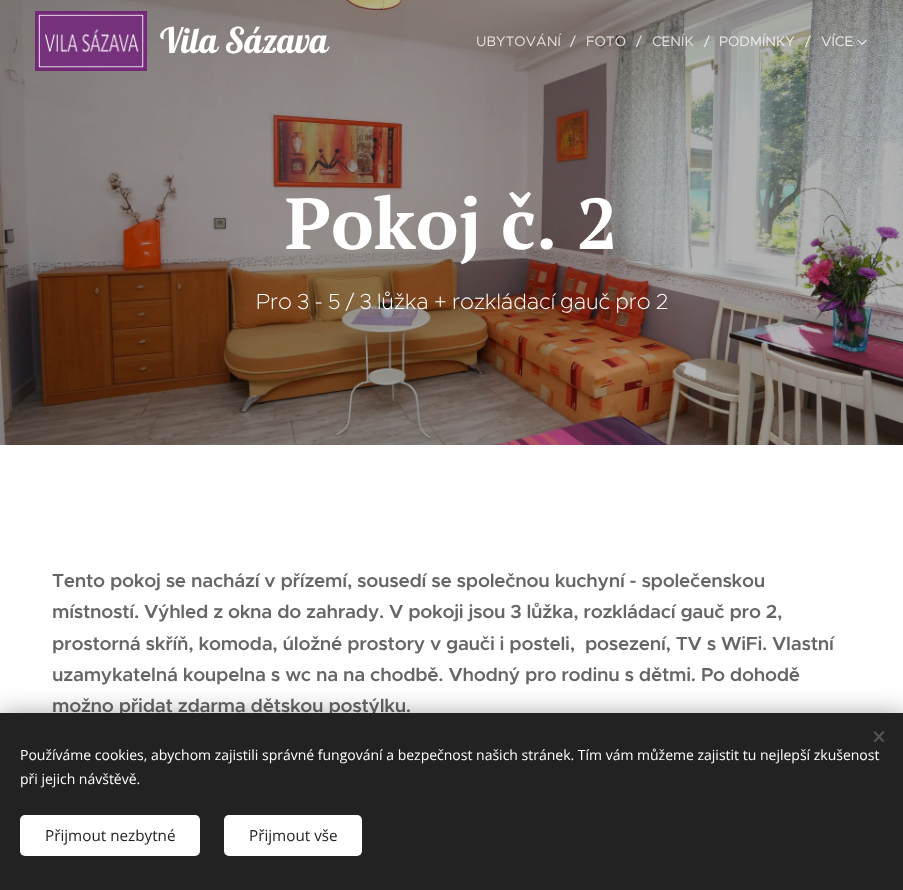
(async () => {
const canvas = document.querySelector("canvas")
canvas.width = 903
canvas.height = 890
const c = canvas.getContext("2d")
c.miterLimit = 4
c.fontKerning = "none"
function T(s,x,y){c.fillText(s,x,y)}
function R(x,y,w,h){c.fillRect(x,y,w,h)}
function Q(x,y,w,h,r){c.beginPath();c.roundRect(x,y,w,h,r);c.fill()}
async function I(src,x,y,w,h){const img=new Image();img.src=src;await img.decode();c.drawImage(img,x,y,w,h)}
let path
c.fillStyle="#fff"
R(0,0,903,890)
await I("3.png",0,0,903,445)
await I("1.png",35,11,112,60)
c.letterSpacing="-0.28px"
c.font="35px Lobster"
T("Vila Sázava",160,53)
c.letterSpacing="0px"
c.font="14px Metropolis"
c.fillStyle="#e5e2e1"
T("UBYTOVÁNÍ",476,46)
T("/",570,46)
T("FOTO",586,46)
T("/",636,46)
T("CENÍK",652,46)
c.fillStyle="#ececeb"
T("/",704,46)
T("PODMÍNKY",719,46)
c.fillStyle="#eaebe5"
T("/",805,46)
c.fillStyle="#ececeb"
T("VÍCE",821,46)
await I("2.png",857,39,10,6)
c.font="bold 72px PT Serif"
c.fillStyle="#fff"
T("Pokoj č. 2",285,249)
c.wordSpacing="-1.25px"
c.font="200 22px Metropolis"
T("Pro 3 - 5 / 3 lůžka + rozkládací gauč pro 2",256,309)
c.letterSpacing="-0.28px"
c.wordSpacing="0px"
c.font="600 19px Metropolis"
c.fillStyle="#666"
T("Tento pokoj se nachází v přízemí, sousedí se společnou kuchyní - společenskou",52,587)
T("místností. Výhled z okna do zahrady. V pokoji jsou 3 lůžka, rozkládací gauč pro 2,",52,618)
T("prostorná skříň, komoda, úložné prostory v gauči i posteli,  posezení, TV s WiFi. Vlastní",52,650)
T("uzamykatelná koupelna s wc na na chodbě. Vhodný pro rodinu s dětmi. Po dohodě",52,681)
T("možno přidat zdarma dětskou postýlku.",52,712)
c.fillStyle="#00000054"
c.filter="blur(12.5px)"
c.beginPath()
c.rect(0,713,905,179)
c.fill()
c.filter="none"
c.fillStyle="#222"
R(0,713,903,177)
c.fillStyle="#555"
path = new Path2D("M873.5 741l9.5-10l1.5 1.5l-9.5 10z")
c.fill(path)
path = new Path2D("M875 731l9.5 10l-1.5 1.5l-9.5-10z")
c.fill(path)
c.letterSpacing="0px"
c.font="14px Open Sans"
c.fillStyle="#fff"
T("Používáme cookies, abychom zajistili správné fungování a bezpečnost našich stránek. Tím vám můžeme zajistit tu nejlepší zkušenost",20,760)
T("při jejich návštěvě.",20,784)
Q(20,815,180,41,5)
c.font="15.25px Open Sans"
c.fillStyle="#222"
T("Přijmout nezbytné",45,841)
c.fillStyle="#fff"
Q(224,815,138,41,5)
c.fillStyle="#222"
T("Přijmout vše",249,841)
})()
